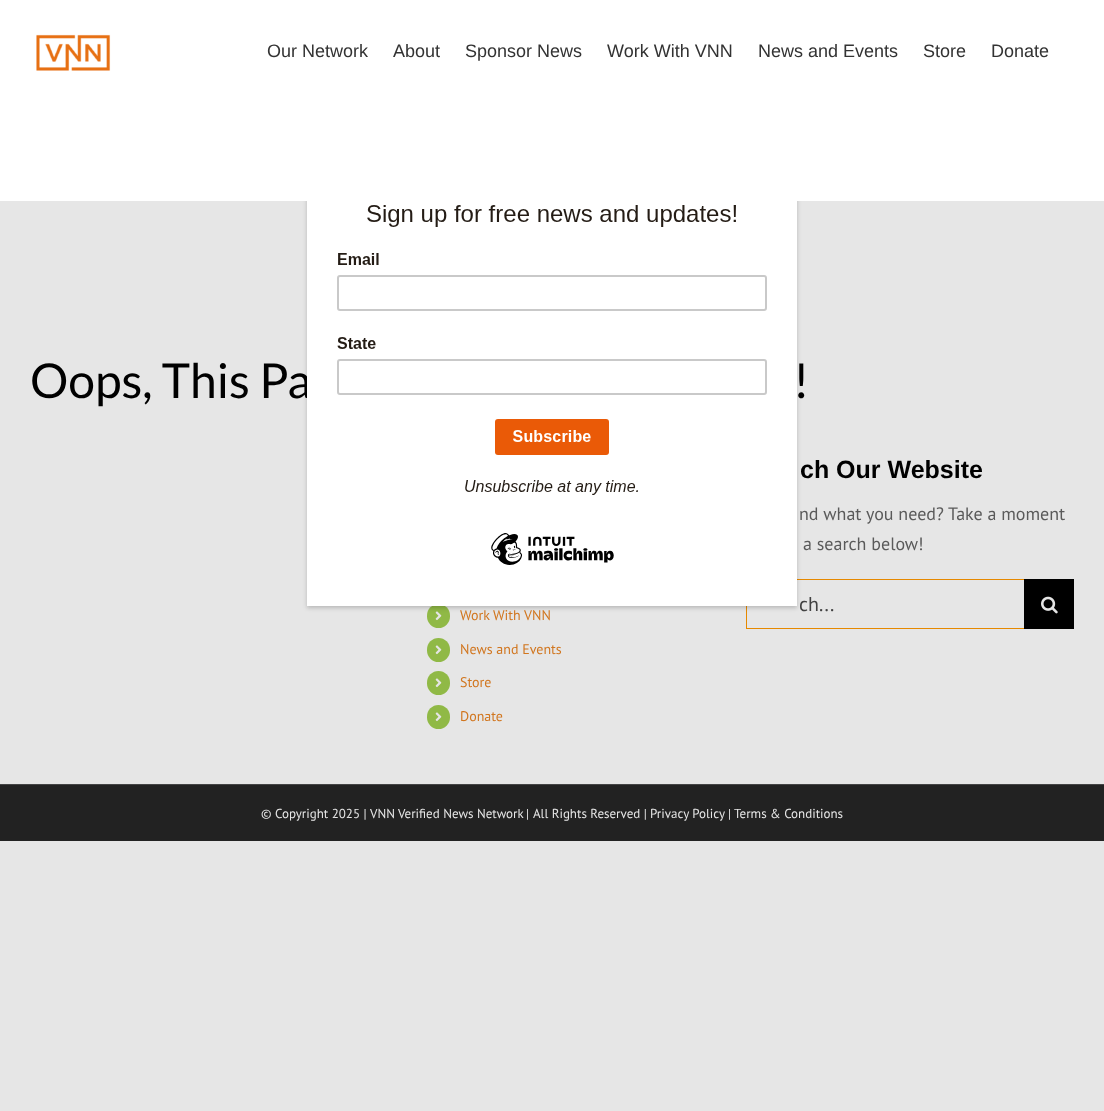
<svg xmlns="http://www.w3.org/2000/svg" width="1104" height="1111">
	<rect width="100%" height="100%" fill="#E6E6E6" />
	<rect x="797" y="579" width="227" height="1" fill="#E68900" />
	<rect x="746" y="628" width="278" height="1" fill="#E68900" />
	<rect x="746" y="606" width="1" height="23" fill="#E68900" />
	<rect x="427" y="604" width="23" height="24" rx="11.5" fill="#90B946" />
	<image x="435" y="611" width="7" height="10" href="assets/img3.png" />
	<rect x="307" y="169" width="490" height="439" fill="#000000" fill-opacity="0.2" filter="blur(2px)" />
	<rect x="0" y="0" width="1104" height="201" fill="#FFFFFF" />
	<image x="36" y="34" width="75" height="37" href="assets/img1.png" />
	<g font-family="Liberation Sans" font-size="18" fill="#333333">
		<text x="267" y="57">Our Network</text>
		<text x="393" y="57">About</text>
		<text x="465" y="57">Sponsor News</text>
		<text x="607" y="57">Work With VNN</text>
		<text x="758" y="57">News and Events</text>
		<text x="923" y="57">Store</text>
		<text x="991" y="57">Donate</text>
	</g>
	<g font-family="Lato" font-size="48" fill="#000000">
		<text x="30" y="398">Oops, This Pa</text>
		<text x="793" y="398">!</text>
	</g>
	<text x="800" y="478" font-family="Liberation Sans" font-size="25" font-weight="700" fill="#000000">ch Our Website</text>
	<g font-family="PT Sans" font-size="18" fill="#5A5A5A">
		<text x="799" y="520">nd what you need? Take a moment</text>
		<text x="803" y="550">a search below!</text>
	</g>
	<text x="799" y="611" font-family="PT Sans" font-size="20" fill="#424242">ch...</text>
	<rect x="1024" y="579" width="50" height="50" fill="#000000" />
	<image x="1041" y="596" width="17" height="18" href="assets/img2.png" />
	<text x="460" y="620" font-family="PT Sans" font-size="14" fill="#D1761F">Work With VNN</text>
	<rect x="427" y="638" width="23" height="24" rx="11.5" fill="#90B946" />
	<image x="435" y="645" width="7" height="10" href="assets/img3.png" />
	<text x="460" y="654" font-family="PT Sans" font-size="14" fill="#D1761F">News and Events</text>
	<rect x="427" y="671" width="23" height="24" rx="11.5" fill="#90B946" />
	<image x="435" y="678" width="7" height="10" href="assets/img3.png" />
	<text x="460" y="687" font-family="PT Sans" font-size="14" fill="#D1761F">Store</text>
	<rect x="427" y="705" width="23" height="24" rx="11.5" fill="#90B946" />
	<image x="435" y="712" width="7" height="10" href="assets/img3.png" />
	<text x="460" y="721" font-family="PT Sans" font-size="14" fill="#D1761F">Donate</text>
	<rect x="0" y="785" width="1104" height="56" fill="#222222" />
	<rect x="0" y="784" width="1104" height="1" fill="#444445" />
	<g font-family="PT Sans" font-size="13" fill="#E6E6E6">
		<text x="261" y="818">© Copyright 2025 |</text>
		<text x="370" y="818">VNN Verified News Network</text>
		<text x="526" y="818">|</text>
		<text x="533" y="818">All Rights Reserved |</text>
		<text x="650" y="818">Privacy Policy</text>
		<text x="728" y="818">|</text>
		<text x="734" y="818">Terms &amp; Conditions</text>
	</g>
	<image x="307" y="201" width="490" height="405" href="assets/img4.png" />
</svg>
